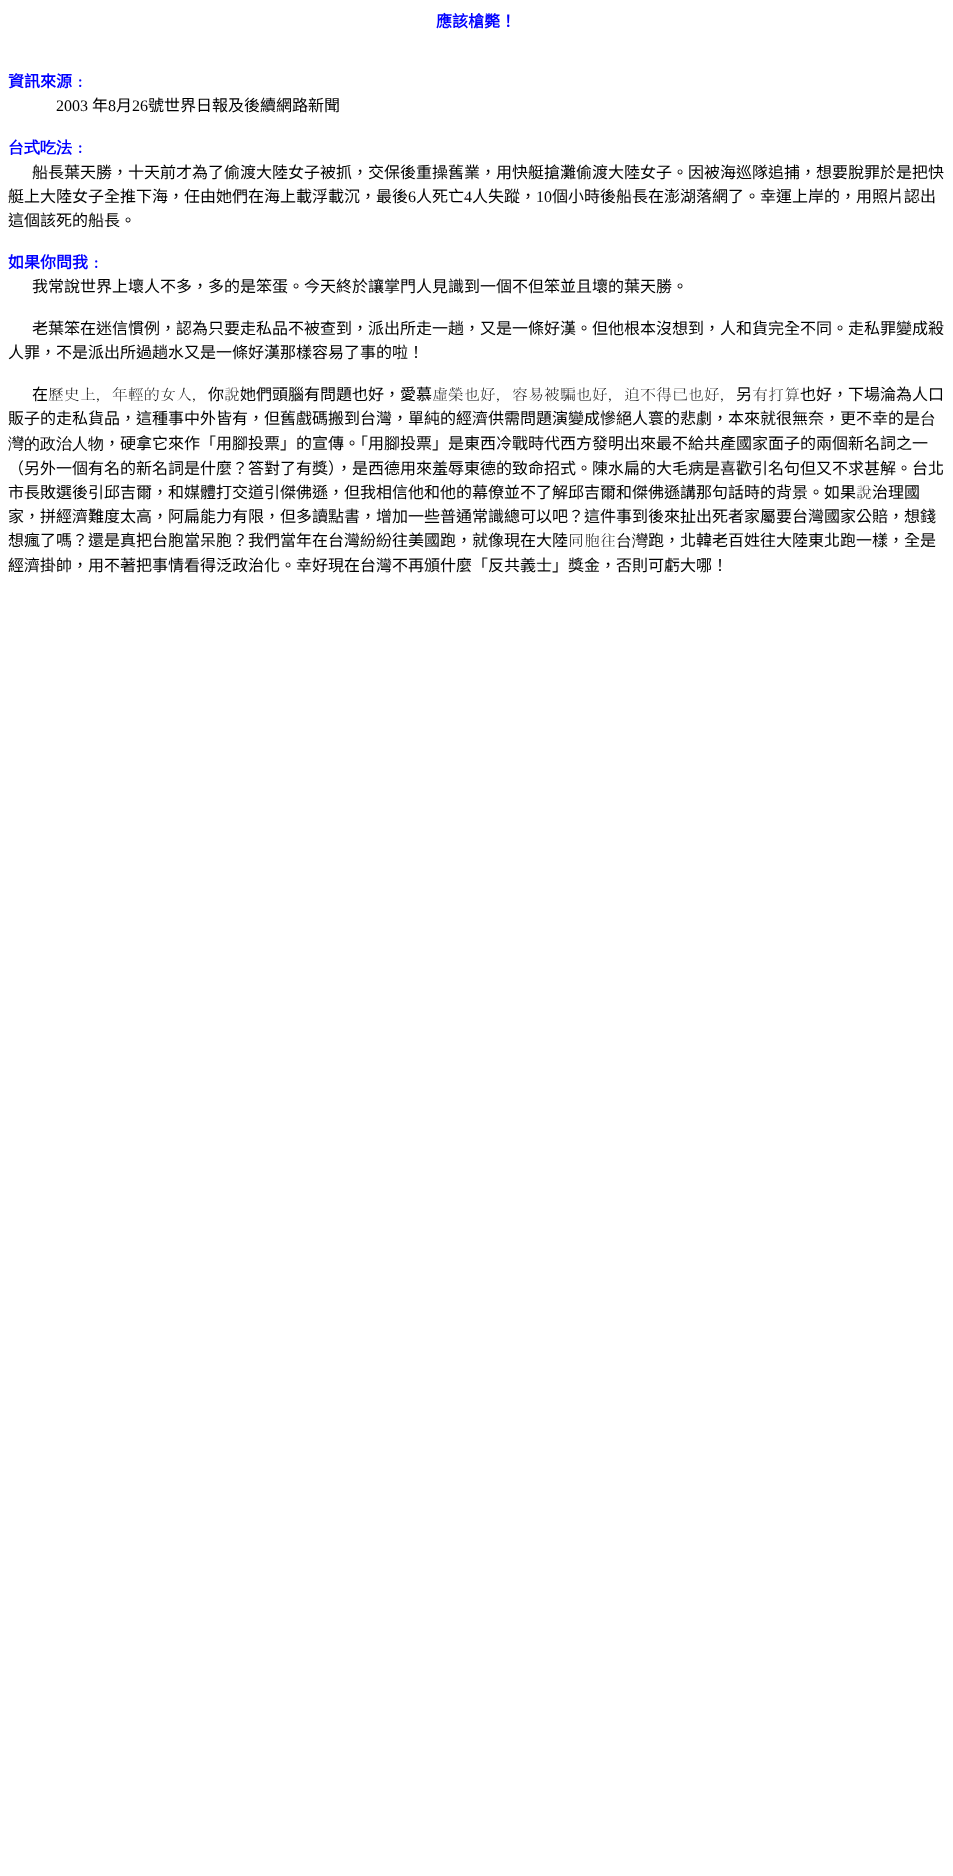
<svg xmlns="http://www.w3.org/2000/svg" width="953" height="1876">
	<rect width="100%" height="100%" fill="#FFFFFF" />
	<g font-family="Noto Sans CJK TC" font-size="16" font-weight="700" fill="#0000FF">
		<text x="436" y="27">應該槍斃！</text>
		<text x="8" y="87">資訊來源</text>
	</g>
	<text x="72" y="87" font-family="Noto Sans CJK SC" font-size="16" font-weight="700" fill="#0000FF">﹕</text>
	<text x="56" y="111" font-family="Liberation Serif" font-size="16" fill="#000000">2003</text>
	<text x="92" y="111" font-family="Noto Sans CJK TC" font-size="16" fill="#000000">年</text>
	<text x="108" y="111" font-family="Liberation Serif" font-size="16" fill="#000000">8</text>
	<text x="116" y="111" font-family="Noto Sans CJK TC" font-size="16" fill="#000000">月</text>
	<text x="132" y="111" font-family="Liberation Serif" font-size="16" fill="#000000">26</text>
	<text x="148" y="111" font-family="Noto Sans CJK TC" font-size="16" fill="#000000">號世界日報及後續網路新聞</text>
	<text x="8" y="153" font-family="WenQuanYi Zen Hei" font-size="16" font-weight="700" fill="#0000FF">台式吃法</text>
	<text x="72" y="153" font-family="Noto Sans CJK SC" font-size="16" font-weight="700" fill="#0000FF">﹕</text>
	<g font-family="Noto Sans CJK TC" font-size="16" fill="#000000">
		<text x="32" y="178">船長葉天勝，十天前才為了偷渡大陸女子被抓，交保後重操舊業，用快艇搶灘偷渡大陸女子。因被海巡隊追捕，想要脫罪於是把快</text>
		<text x="8" y="202">艇上大陸女子全推下海，任由她們在海上載浮載沉，最後</text>
	</g>
	<text x="408" y="202" font-family="Liberation Serif" font-size="16" fill="#000000">6</text>
	<text x="416" y="202" font-family="Noto Sans CJK TC" font-size="16" fill="#000000">人死亡</text>
	<text x="464" y="202" font-family="Liberation Serif" font-size="16" fill="#000000">4</text>
	<text x="472" y="202" font-family="Noto Sans CJK TC" font-size="16" fill="#000000">人失蹤，</text>
	<text x="536" y="202" font-family="Liberation Serif" font-size="16" fill="#000000">10</text>
	<g font-family="Noto Sans CJK TC" font-size="16" fill="#000000">
		<text x="552" y="202">個小時後船長在澎湖落網了。幸運上岸的，用照片認出</text>
		<text x="8" y="226">這個該死的船長。</text>
	</g>
	<text x="8" y="268" font-family="Noto Sans CJK TC" font-size="16" font-weight="700" fill="#0000FF">如果你問我</text>
	<text x="88" y="268" font-family="Noto Sans CJK SC" font-size="16" font-weight="700" fill="#0000FF">﹕</text>
	<g font-family="Noto Sans CJK TC" font-size="16" fill="#000000">
		<text x="32" y="292">我常說世界上壞人不多，多的是笨蛋。今天終於讓掌門人見識到一個不但笨並且壞的葉天勝。</text>
		<text x="32" y="334">老葉笨在迷信慣例，認為只要走私品不被查到，派出所走一趟，又是一條好漢。但他根本沒想到，人和貨完全不同。走私罪變成殺</text>
		<text x="8" y="358">人罪，不是派出所過趟水又是一條好漢那樣容易了事的啦！</text>
		<text x="32" y="400">在</text>
	</g>
	<text x="48" y="400" font-family="Batang" font-size="16" fill="#000000">歷史上，年輕的女人，</text>
	<text x="208" y="400" font-family="Noto Sans CJK TC" font-size="16" fill="#000000">你</text>
	<text x="224" y="400" font-family="Batang" font-size="16" fill="#000000">說</text>
	<text x="240" y="400" font-family="Noto Sans CJK TC" font-size="16" fill="#000000">她們頭腦有問題也好，愛慕</text>
	<text x="432" y="400" font-family="Batang" font-size="16" fill="#000000">虛榮也好，容易被騙也好，迫不得已也好，</text>
	<text x="736" y="400" font-family="Noto Sans CJK TC" font-size="16" fill="#000000">另</text>
	<text x="752" y="400" font-family="Batang" font-size="16" fill="#000000">有打算</text>
	<g font-family="Noto Sans CJK TC" font-size="16" fill="#000000">
		<text x="800" y="400">也好，下場淪為人口</text>
		<text x="8" y="424">販子的走私貨品，這種事中外皆有，但舊戲碼搬到台灣，單純的經濟供需問題演變成慘絕人寰的悲劇，本來就很無奈，更不幸的是</text>
	</g>
	<g font-family="WenQuanYi Zen Hei" font-size="16" font-weight="500" fill="#000000">
		<text x="920" y="424">台</text>
		<text x="8" y="449">灣的政治人物</text>
	</g>
	<g font-family="Noto Sans CJK TC" font-size="16" fill="#000000">
		<text x="104" y="449">，硬拿它來作「用腳投票」的宣傳。「</text>
		<text x="368" y="449">用腳投票」是東西冷戰時代西方發明出來最不給共產國家面子的兩個新名詞之一</text>
		<text x="8" y="474">（另外一個有名的新名詞是什麼？答對了有獎），是西德用來羞辱東德的致命招式。陳水扁的大毛病是喜歡引名句但又不求甚解。台北</text>
		<text x="8" y="498">市長敗選後引邱吉爾，和媒體打交道引傑佛遜，但我相信他和他的幕僚並不了解邱吉爾和傑佛遜講那句話時的背景。如果</text>
	</g>
	<text x="856" y="498" font-family="Batang" font-size="16" fill="#000000">說</text>
	<g font-family="Noto Sans CJK TC" font-size="16" fill="#000000">
		<text x="872" y="498">治理國</text>
		<text x="8" y="522">家，拼經濟難度太高，阿扁能力有限，但多讀點書，增加一些普通常識總可以吧？這件事到後來扯出死者家屬要台灣國家公賠，想錢</text>
		<text x="8" y="546">想瘋了嗎？還是真把台胞當呆胞？我們當年在台灣紛紛往美國跑，就像現在大陸</text>
	</g>
	<text x="568" y="546" font-family="Batang" font-size="16" fill="#000000">同胞往</text>
	<text x="616" y="546" font-family="WenQuanYi Zen Hei" font-size="16" font-weight="500" fill="#000000">台灣</text>
	<g font-family="Noto Sans CJK TC" font-size="16" fill="#000000">
		<text x="648" y="546">跑，北韓老百姓往大陸東北跑一樣，全是</text>
		<text x="8" y="571">經濟掛帥，用不著把事情看得泛政治化。幸好現在台灣不再頒什麼「反共義士」獎金，否則可虧大哪！</text>
	</g>
</svg>
